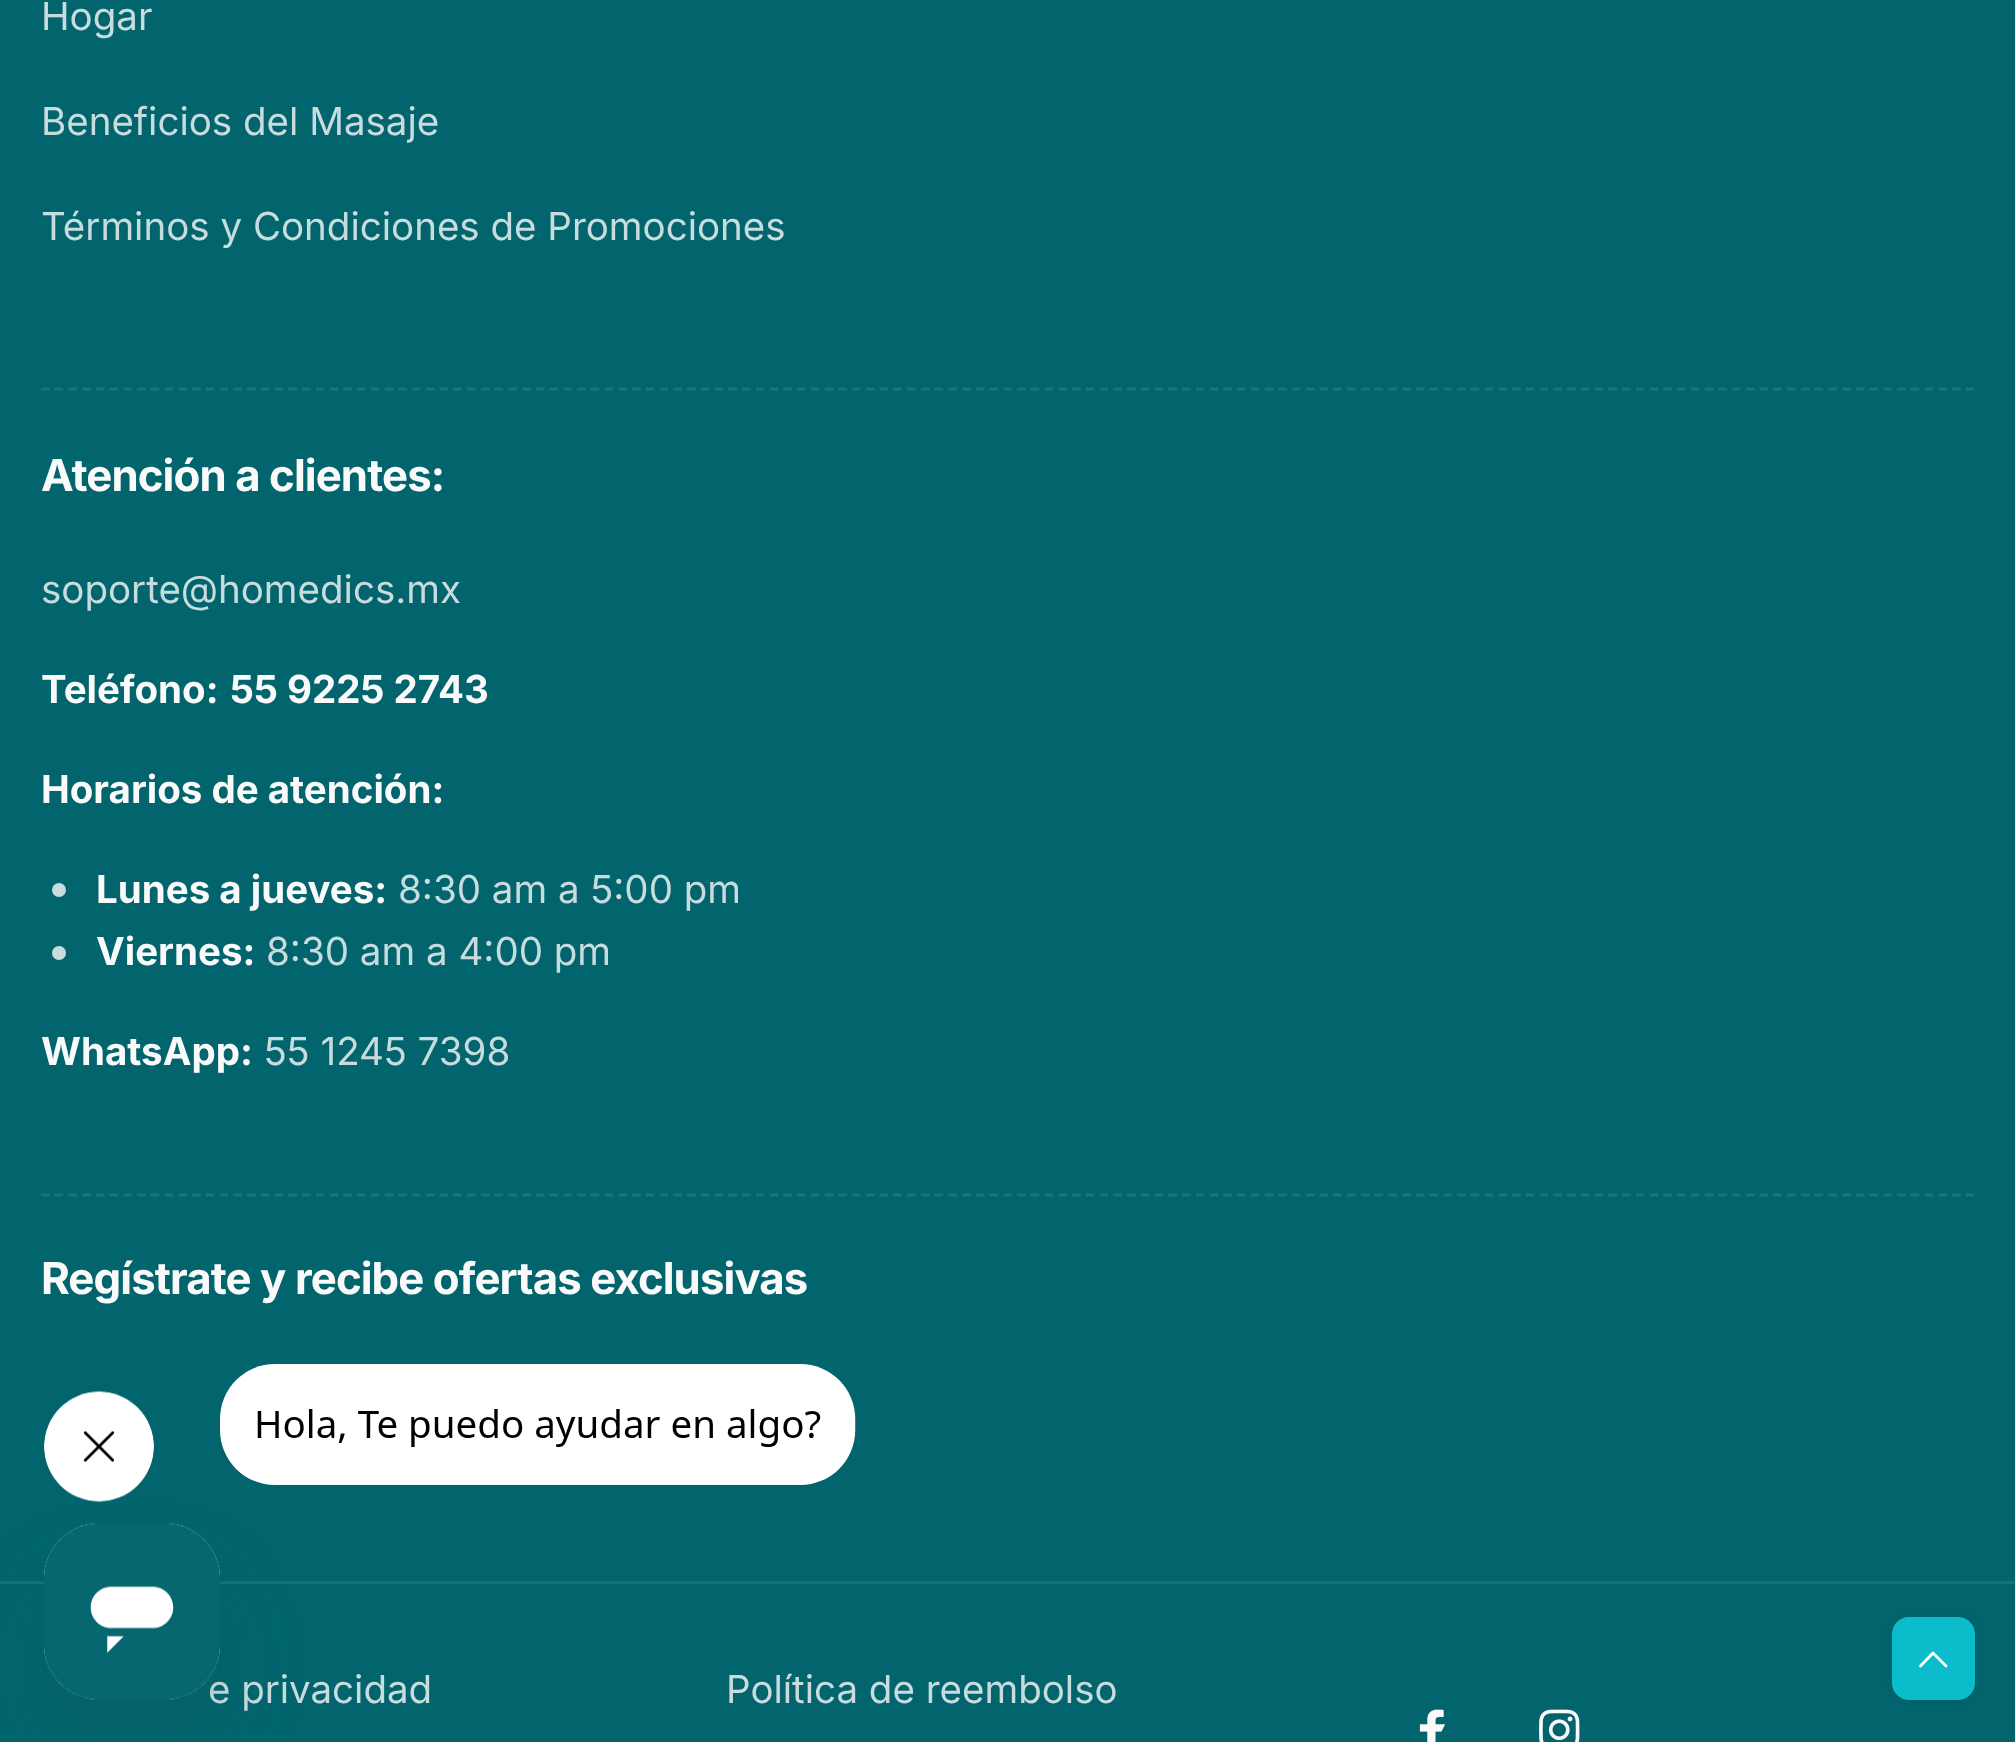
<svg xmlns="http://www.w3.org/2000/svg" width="2015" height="1742">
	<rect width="100%" height="100%" fill="#02656E" />
	<path d="M41 389H1974.5" fill="none" stroke="#1B747C" stroke-width="2.8" stroke-dasharray="8.25 5.5" />
	<g font-family="Inter" font-size="38.5" fill="#C8DCDE">
		<text x="41" y="30">Hogar</text>
		<text x="41" y="135">Beneficios del Masaje</text>
		<text x="41" y="240">Términos y Condiciones de Promociones</text>
	</g>
	<path d="M41 1195H1974.5" fill="none" stroke="#1B747C" stroke-width="2.8" stroke-dasharray="8.25 5.5" />
	<text x="41" y="491" font-family="Inter" font-size="44" font-weight="700" letter-spacing="-0.9" fill="#FAFAFA">Atención a clientes:</text>
	<text x="41" y="603" font-family="Inter" font-size="38.5" fill="#C8DCDE">soporte@homedics.mx</text>
	<g font-family="'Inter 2'" font-size="38.5" font-weight="700" fill="#FAFAFA">
		<text x="41" y="703">Teléfono:</text>
		<text x="230" y="703">55 9225 2743</text>
		<text x="41" y="803">Horarios de atención:</text>
	</g>
	<circle cx="59" cy="890" r="7" fill="#C8DCDE" />
	<text x="96" y="903" font-family="'Inter 2'" font-size="38.5" font-weight="700" fill="#FAFAFA">Lunes a jueves:</text>
	<text x="398" y="903" font-family="Inter" font-size="38.5" fill="#C8DCDE">8:30 am a 5:00 pm</text>
	<circle cx="59" cy="953" r="7" fill="#C8DCDE" />
	<text x="96" y="965" font-family="'Inter 2'" font-size="38.5" font-weight="700" fill="#FAFAFA">Viernes:</text>
	<text x="266" y="965" font-family="Inter" font-size="38.5" fill="#C8DCDE">8:30 am a 4:00 pm</text>
	<text x="41" y="1065" font-family="'Inter 2'" font-size="38.5" font-weight="700" fill="#FAFAFA">WhatsApp:</text>
	<text x="264" y="1065" font-family="Inter" font-size="38.5" fill="#C8DCDE">55 1245 7398</text>
	<text x="41" y="1294" font-family="Inter" font-size="44" font-weight="700" letter-spacing="-0.9" fill="#FAFAFA">Regístrate y recibe ofertas exclusivas</text>
	<rect x="0" y="1581" width="2015" height="3" fill="#167179" />
	<g font-family="Inter" font-size="38.5" fill="#C8DCDE">
		<text x="208" y="1703">e privacidad</text>
		<text x="726" y="1703">Política de reembolso</text>
	</g>
	<image x="1419" y="1709" width="26" height="33" href="assets/img1.png" />
	<image x="1539" y="1709" width="41" height="33" href="assets/img2.png" />
	<image x="44" y="1391" width="110" height="111" href="assets/img3.png" />
	<image x="220" y="1364" width="636" height="121" href="assets/img4.png" />
	<rect x="44" y="1579" width="176" height="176" rx="55" fill="#17494D" fill-opacity="0.15" filter="blur(41px)" />
	<image x="44" y="1523" width="176" height="177" href="assets/img5.png" />
	<rect x="1892" y="1617" width="83" height="83" rx="17" fill="#000000" fill-opacity="0.1" filter="blur(4px)" />
	<rect x="1893.5" y="1618.5" width="80" height="80" rx="15.5" fill="#0BBDCA" stroke="#0BBDCA" stroke-width="3" />
	<path d="M1920.5 1666L1933 1653L1946 1666" fill="none" stroke="#FFFFFF" stroke-width="2.8" stroke-linecap="round" stroke-linejoin="round" />
</svg>
